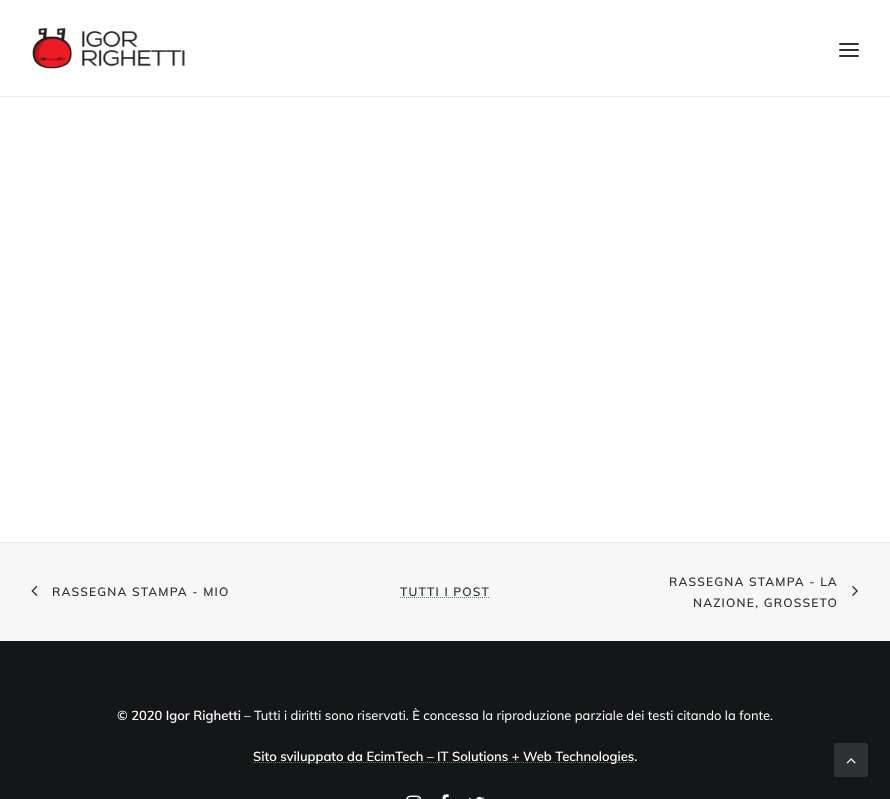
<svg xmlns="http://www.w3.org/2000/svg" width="890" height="799">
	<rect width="100%" height="100%" fill="#FFFFFF" />
	<rect x="0" y="96" width="890" height="1" fill="#EAEAEA" />
	<image x="32" y="28" width="153" height="41" href="assets/img1.png" />
	<rect x="839" y="49" width="20" height="2" rx="1" fill="#303133" />
	<rect x="839" y="43" width="20" height="2" rx="1" fill="#303133" />
	<rect x="839" y="55" width="20" height="2" rx="1" fill="#303133" />
	<rect x="-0.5" y="542.5" width="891" height="99" fill="#F7F7F7" stroke="#EAEAEA" />
	<image x="31" y="585" width="7" height="11" href="assets/img2.png" />
	<g font-family="Muli" font-size="12" font-weight="600" letter-spacing="1.2" fill="#303133">
		<text x="52" y="596">RASSEGNA STAMPA - MIO</text>
		<text x="400" y="596">TUTTI I POST</text>
	</g>
	<path d="M400 597.5H490" fill="none" stroke="#389656" stroke-dasharray="1 1" />
	<g font-family="Muli" font-size="12" font-weight="600" letter-spacing="1.2" fill="#303133">
		<text x="669" y="586">RASSEGNA STAMPA - LA</text>
		<text x="693" y="607">NAZIONE, GROSSETO</text>
	</g>
	<image x="852" y="586" width="6" height="10" href="assets/img3.png" />
	<rect x="0" y="641" width="890" height="158" fill="#141618" />
	<text x="117" y="720" font-family="Muli" font-size="13" font-weight="600" fill="#FFFFFF">© 2020 Igor Righetti</text>
	<text x="244" y="720" font-family="Muli" font-size="13" fill="#FFFFFF">– Tutti i diritti sono riservati. È concessa la riproduzione parziale dei testi citando la fonte.</text>
	<path d="M253 762.5H634" fill="none" stroke="#389656" stroke-dasharray="1 1" />
	<text x="253" y="761" font-family="Muli" font-size="13" font-weight="600" fill="#FFFFFF">Sito sviluppato da EcimTech – IT Solutions + Web Technologies.</text>
	<image x="406" y="795" width="16" height="4" href="assets/img4.png" />
	<image x="442" y="794" width="7" height="5" href="assets/img5.png" />
	<image x="469" y="796" width="16" height="3" href="assets/img6.png" />
	<rect x="834.5" y="743.5" width="33" height="33" rx="1.5" fill="#303133" stroke="#303133" />
	<image x="846" y="758" width="10" height="6" href="assets/img7.png" />
</svg>
